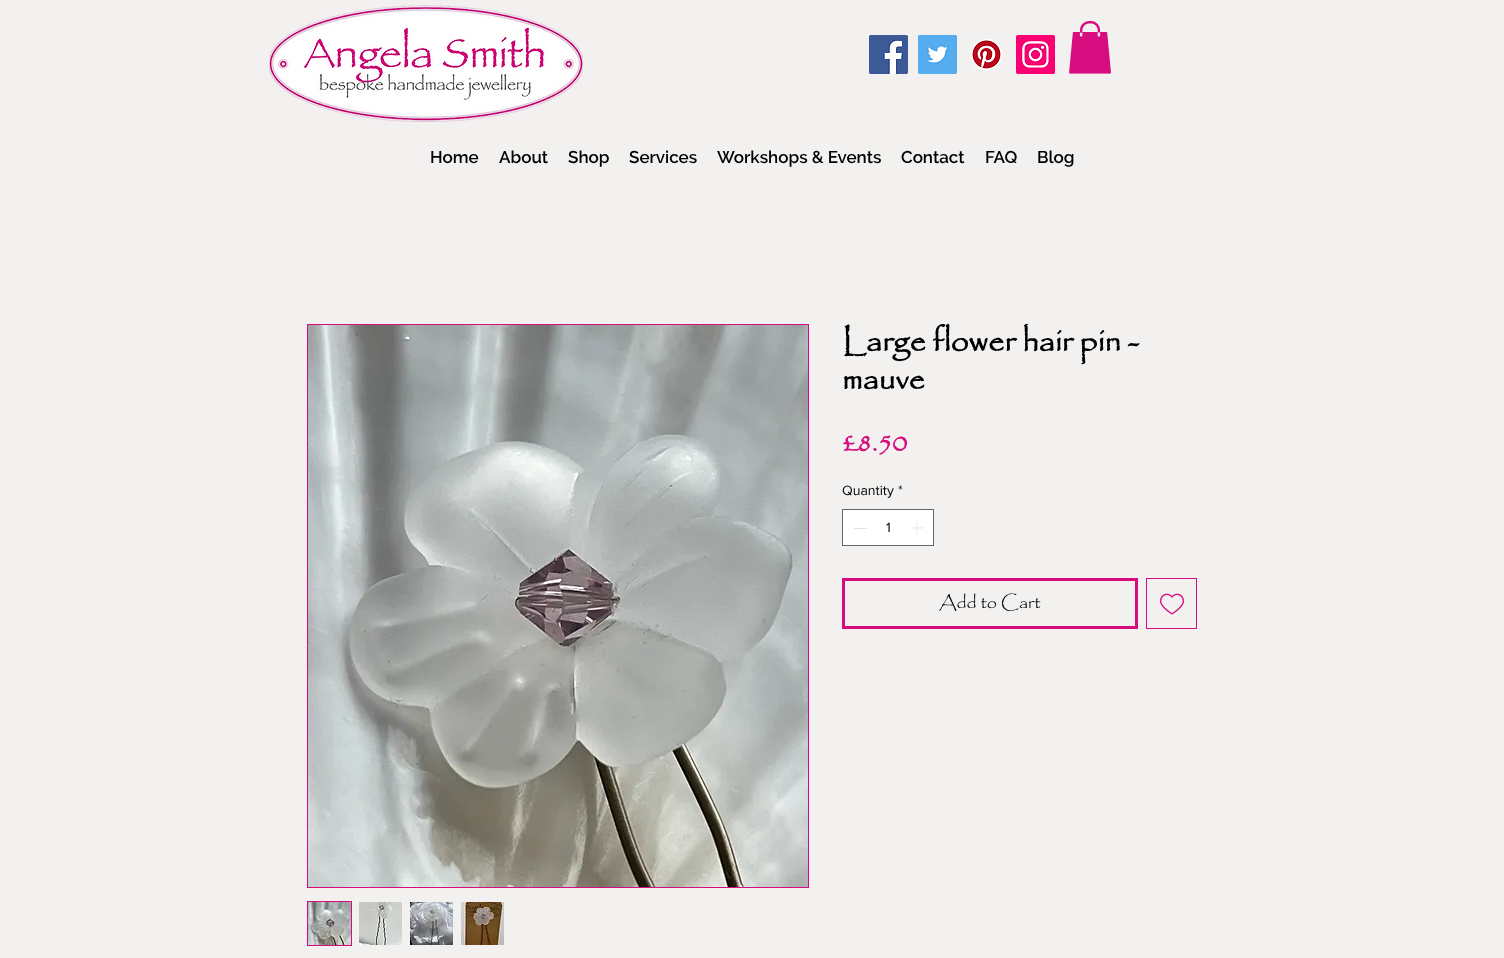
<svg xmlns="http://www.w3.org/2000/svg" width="1504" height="958">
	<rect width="100%" height="100%" fill="#F2F1F0" />
	<image x="269" y="5" width="314" height="117" href="assets/img1.png" />
	<image x="869" y="35" width="39" height="39" href="assets/img2.png" />
	<image x="918" y="35" width="39" height="39" href="assets/img3.png" />
	<image x="971" y="39" width="31" height="31" href="assets/img4.png" />
	<image x="1016" y="35" width="39" height="39" href="assets/img5.png" />
	<image x="1069" y="21" width="42" height="53" href="assets/img6.png" />
	<g font-family="Raleway" font-size="17" font-weight="600" fill="#000000">
		<text x="430" y="163">Home</text>
		<text x="499" y="163">About</text>
		<text x="568" y="163">Shop</text>
		<text x="629" y="163">Services</text>
		<text x="717" y="163">Workshops &amp; Events</text>
		<text x="901" y="163">Contact</text>
		<text x="985" y="163">FAQ</text>
		<text x="1037" y="163">Blog</text>
	</g>
	<rect x="307.5" y="324.5" width="501" height="563" fill="none" stroke="#D70C7F" />
	<image x="308" y="325" width="500" height="562" href="assets/img7.png" />
	<rect x="307.5" y="901.5" width="44" height="44" fill="none" stroke="#D70C7F" />
	<image x="308" y="902" width="43" height="43" href="assets/img8.png" />
	<image x="359" y="902" width="43" height="43" href="assets/img9.png" />
	<image x="410" y="902" width="43" height="43" href="assets/img10.png" />
	<image x="461" y="902" width="43" height="43" href="assets/img11.png" />
	<g font-family="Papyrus" font-size="32" font-weight="700" fill="#000000">
		<text x="842" y="351">Large flower hair pin -</text>
		<text x="842" y="389">mauve</text>
	</g>
	<text x="842" y="451" font-family="Papyrus" font-size="26" font-weight="700" fill="#D70C7F">£8.50</text>
	<g font-family="'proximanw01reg'" font-size="14" fill="#000000">
		<text x="842" y="495">Quantity</text>
		<text x="898" y="495">*</text>
	</g>
	<rect x="842.5" y="509.5" width="91" height="36" fill="#FFFFFF" stroke="#666666" />
	<rect x="854" y="528" width="13" height="1" fill="#E3E3E3" />
	<text x="886" y="532" font-family="'proximanw01reg'" font-size="14" fill="#000000">1</text>
	<image x="910" y="521" width="14" height="14" href="assets/img12.png" />
	<rect x="843.5" y="579.5" width="293" height="48" fill="none" stroke="#D70C7F" stroke-width="3" />
	<text x="939" y="608" font-family="Papyrus" font-size="18" fill="#000000">Add to Cart</text>
	<rect x="1146.5" y="578.5" width="50" height="50" fill="none" stroke="#D70C7F" />
	<image x="1160" y="593" width="24" height="22" href="assets/img13.png" />
</svg>
